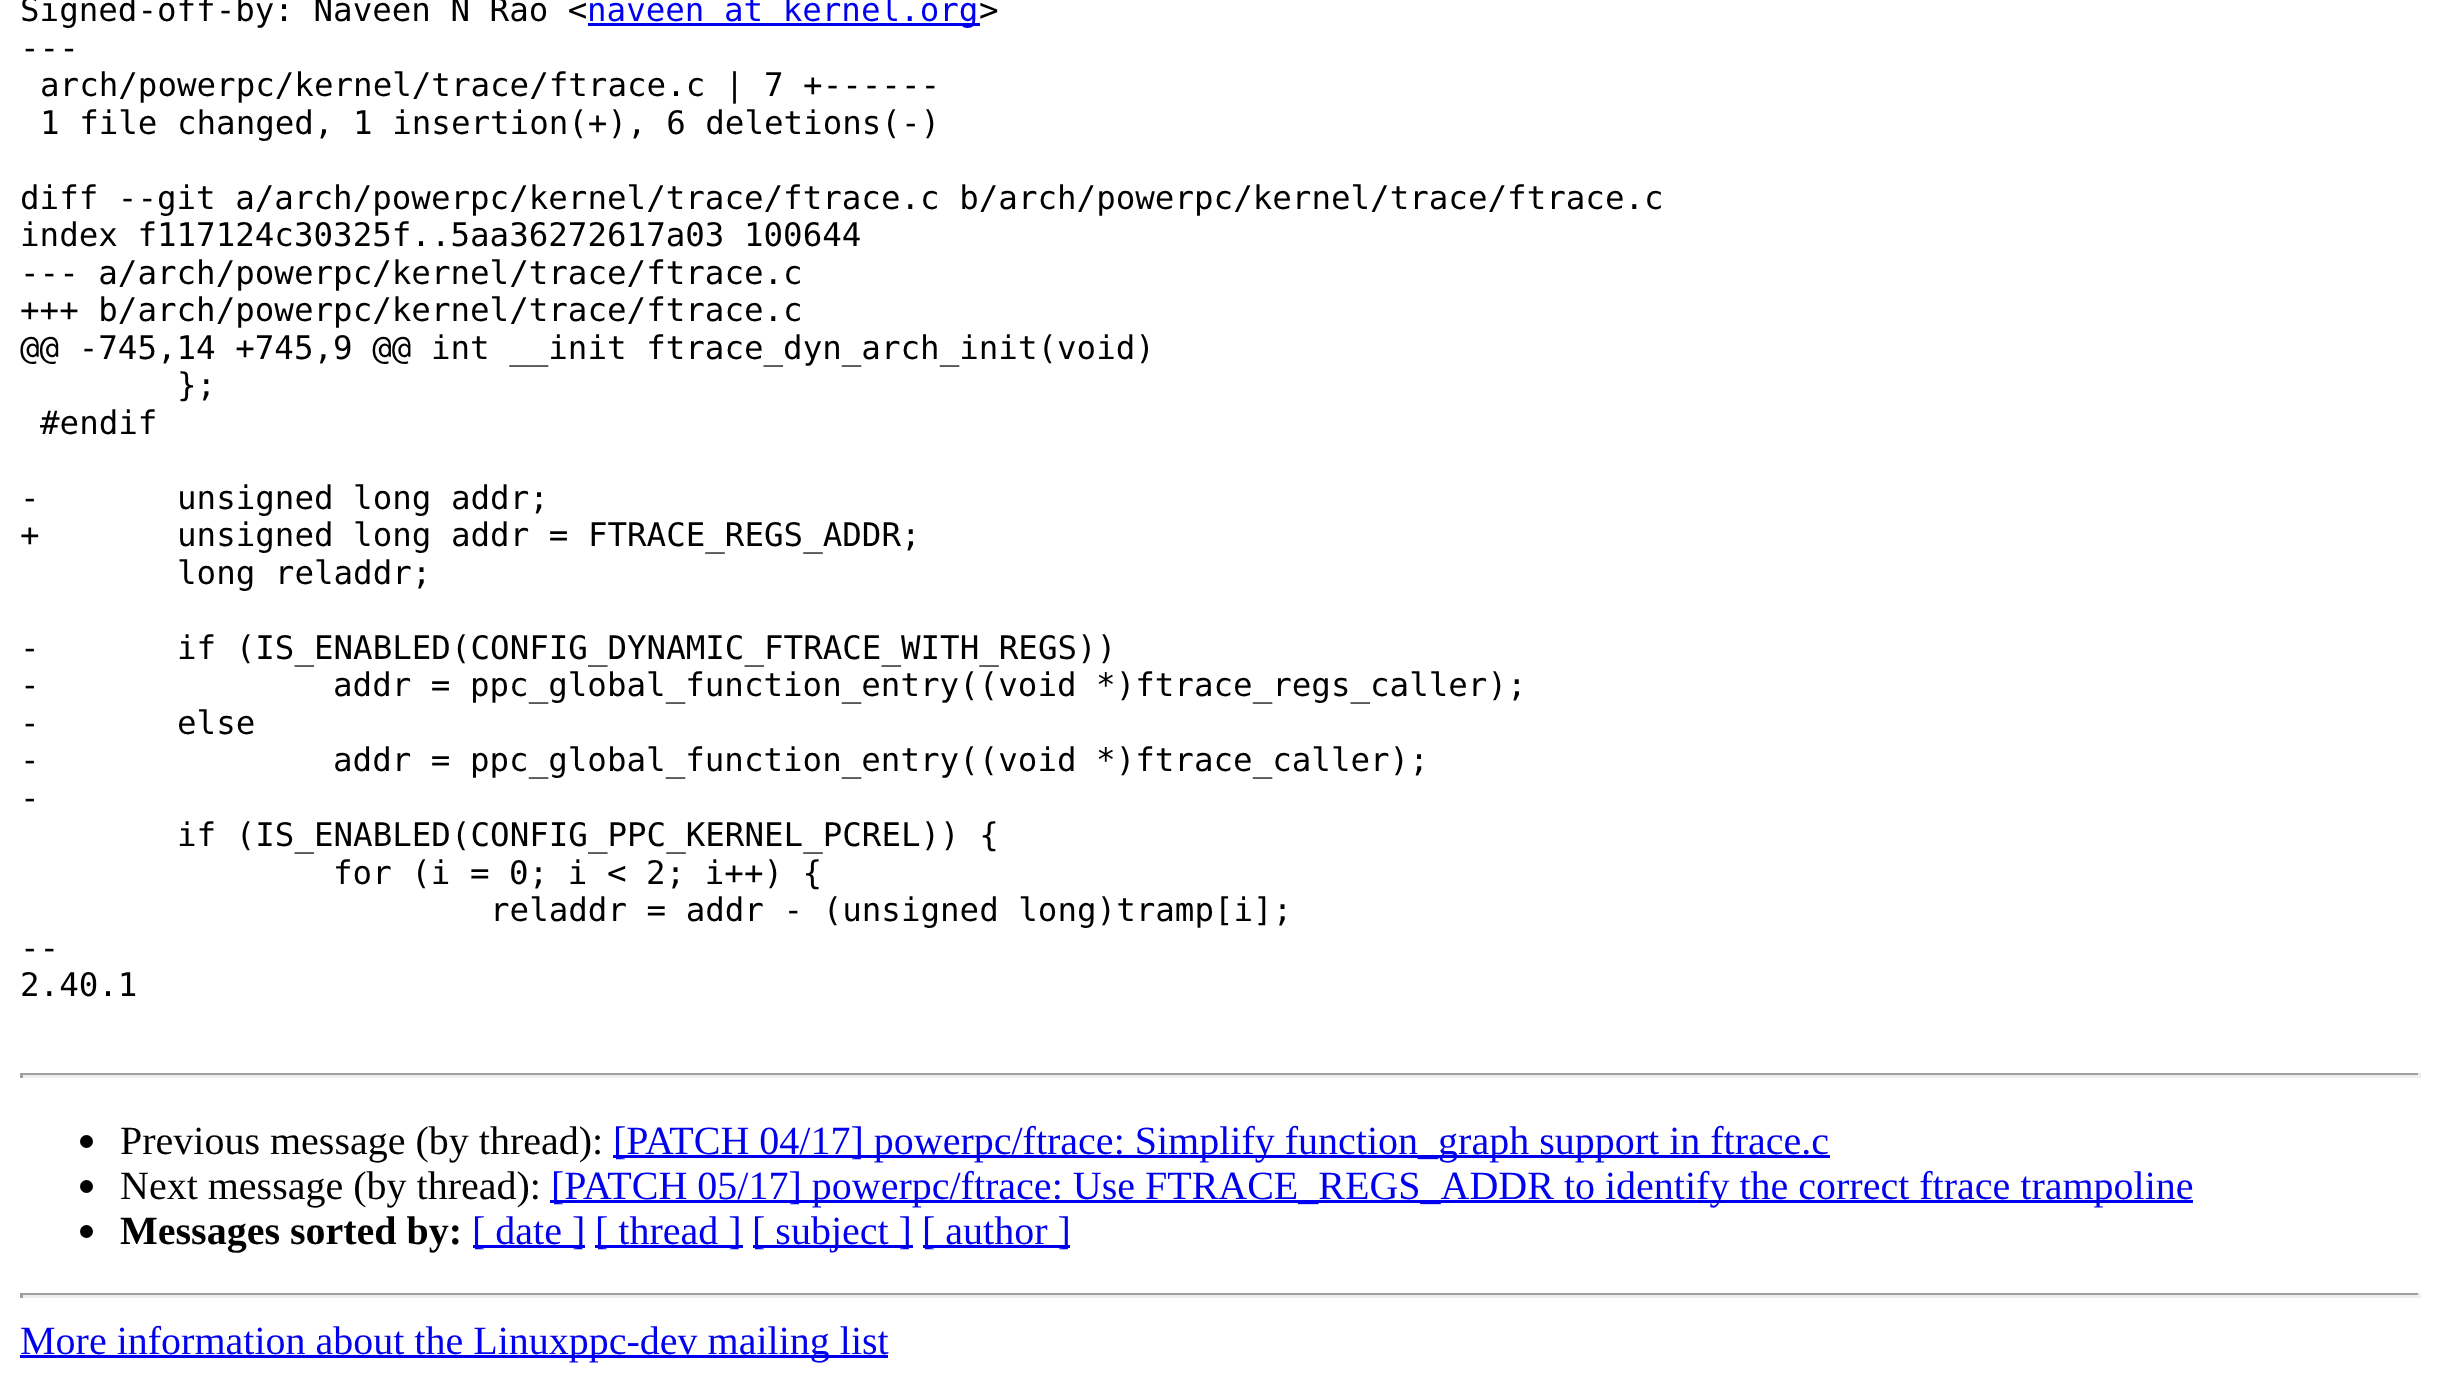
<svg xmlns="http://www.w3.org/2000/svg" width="2438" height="1382">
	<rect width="100%" height="100%" fill="#FFFFFF" />
	<text x="20" y="21" font-family="DejaVu Sans Mono" font-size="32.5" fill="#000000">Signed-off-by: Naveen N Rao &lt;</text>
	<rect x="588" y="23" width="392" height="3" fill="#0000EE" />
	<text x="587" y="21" font-family="DejaVu Sans Mono" font-size="32.5" fill="#0000EE">naveen at kernel.org</text>
	<g font-family="DejaVu Sans Mono" font-size="32.5" fill="#000000">
		<text x="979" y="21">&gt;</text>
		<text x="20" y="59">---</text>
		<text x="40" y="96">arch/powerpc/kernel/trace/ftrace.c | 7 +------</text>
		<text x="40" y="134">1 file changed, 1 insertion(+), 6 deletions(-)</text>
		<text x="20" y="209">diff --git a/arch/powerpc/kernel/trace/ftrace.c b/arch/powerpc/kernel/trace/ftrace.c</text>
		<text x="20" y="246">index f117124c30325f..5aa36272617a03 100644</text>
		<text x="20" y="284">--- a/arch/powerpc/kernel/trace/ftrace.c</text>
		<text x="20" y="321">+++ b/arch/powerpc/kernel/trace/ftrace.c</text>
		<text x="20" y="359">@@ -745,14 +745,9 @@ int __init ftrace_dyn_arch_init(void)</text>
		<text x="177" y="396">};</text>
		<text x="40" y="434">#endif</text>
		<text x="20" y="509">-</text>
		<text x="177" y="509">unsigned long addr;</text>
		<text x="20" y="546">+</text>
		<text x="177" y="546">unsigned long addr = FTRACE_REGS_ADDR;</text>
		<text x="177" y="584">long reladdr;</text>
		<text x="20" y="659">-</text>
		<text x="177" y="659">if (IS_ENABLED(CONFIG_DYNAMIC_FTRACE_WITH_REGS))</text>
		<text x="20" y="696">-</text>
		<text x="333" y="696">addr = ppc_global_function_entry((void *)ftrace_regs_caller);</text>
		<text x="20" y="734">-</text>
		<text x="177" y="734">else</text>
		<text x="20" y="771">-</text>
		<text x="333" y="771">addr = ppc_global_function_entry((void *)ftrace_caller);</text>
		<text x="20" y="809">-</text>
		<text x="177" y="846">if (IS_ENABLED(CONFIG_PPC_KERNEL_PCREL)) {</text>
		<text x="333" y="884">for (i = 0; i &lt; 2; i++) {</text>
		<text x="490" y="921">reladdr = addr - (unsigned long)tramp[i];</text>
		<text x="20" y="959">--</text>
		<text x="20" y="996">2.40.1</text>
	</g>
	<rect x="20" y="1073" width="2400" height="2" fill="#9F9F9F" />
	<rect x="2418" y="1073" width="3" height="5" fill="#EEEEEE" />
	<rect x="20" y="1075" width="2400" height="3" fill="#EEEEEE" />
	<rect x="20" y="1073" width="3" height="5" fill="#9F9F9F" />
	<circle cx="86.5" cy="1141.5" r="6.5" fill="#000000" />
	<text x="120" y="1154" font-family="Liberation Serif" font-size="40" fill="#000000">Previous message (by thread):</text>
	<rect x="613" y="1155" width="1217" height="3" fill="#0000EE" />
	<text x="613" y="1154" font-family="Liberation Serif" font-size="40" fill="#0000EE">[PATCH 04/17] powerpc/ftrace: Simplify function_graph support in ftrace.c</text>
	<circle cx="86.5" cy="1186.5" r="6.5" fill="#000000" />
	<text x="120" y="1199" font-family="Liberation Serif" font-size="40" fill="#000000">Next message (by thread):</text>
	<rect x="550" y="1200" width="1643" height="3" fill="#0000EE" />
	<text x="551" y="1199" font-family="Liberation Serif" font-size="40" fill="#0000EE">[PATCH 05/17] powerpc/ftrace: Use FTRACE_REGS_ADDR to identify the correct ftrace trampoline</text>
	<circle cx="86.5" cy="1231.5" r="6.5" fill="#000000" />
	<text x="120" y="1244" font-family="Liberation Serif" font-size="40" font-weight="700" fill="#000000">Messages sorted by:</text>
	<rect x="473" y="1245" width="112" height="3" fill="#0000EE" />
	<text x="472" y="1244" font-family="Liberation Serif" font-size="40" fill="#0000EE">[ date ]</text>
	<rect x="595" y="1245" width="148" height="3" fill="#0000EE" />
	<text x="595" y="1244" font-family="Liberation Serif" font-size="40" fill="#0000EE">[ thread ]</text>
	<rect x="753" y="1245" width="160" height="3" fill="#0000EE" />
	<text x="752" y="1244" font-family="Liberation Serif" font-size="40" fill="#0000EE">[ subject ]</text>
	<rect x="923" y="1245" width="147" height="3" fill="#0000EE" />
	<text x="922" y="1244" font-family="Liberation Serif" font-size="40" fill="#0000EE">[ author ]</text>
	<rect x="20" y="1293" width="2400" height="2" fill="#9F9F9F" />
	<rect x="2418" y="1293" width="3" height="5" fill="#EEEEEE" />
	<rect x="20" y="1295" width="2400" height="3" fill="#EEEEEE" />
	<rect x="20" y="1293" width="3" height="5" fill="#9F9F9F" />
	<rect x="20" y="1355" width="868" height="3" fill="#0000EE" />
	<text x="20" y="1354" font-family="Liberation Serif" font-size="40" fill="#0000EE">More information about the Linuxppc-dev mailing list</text>
</svg>
